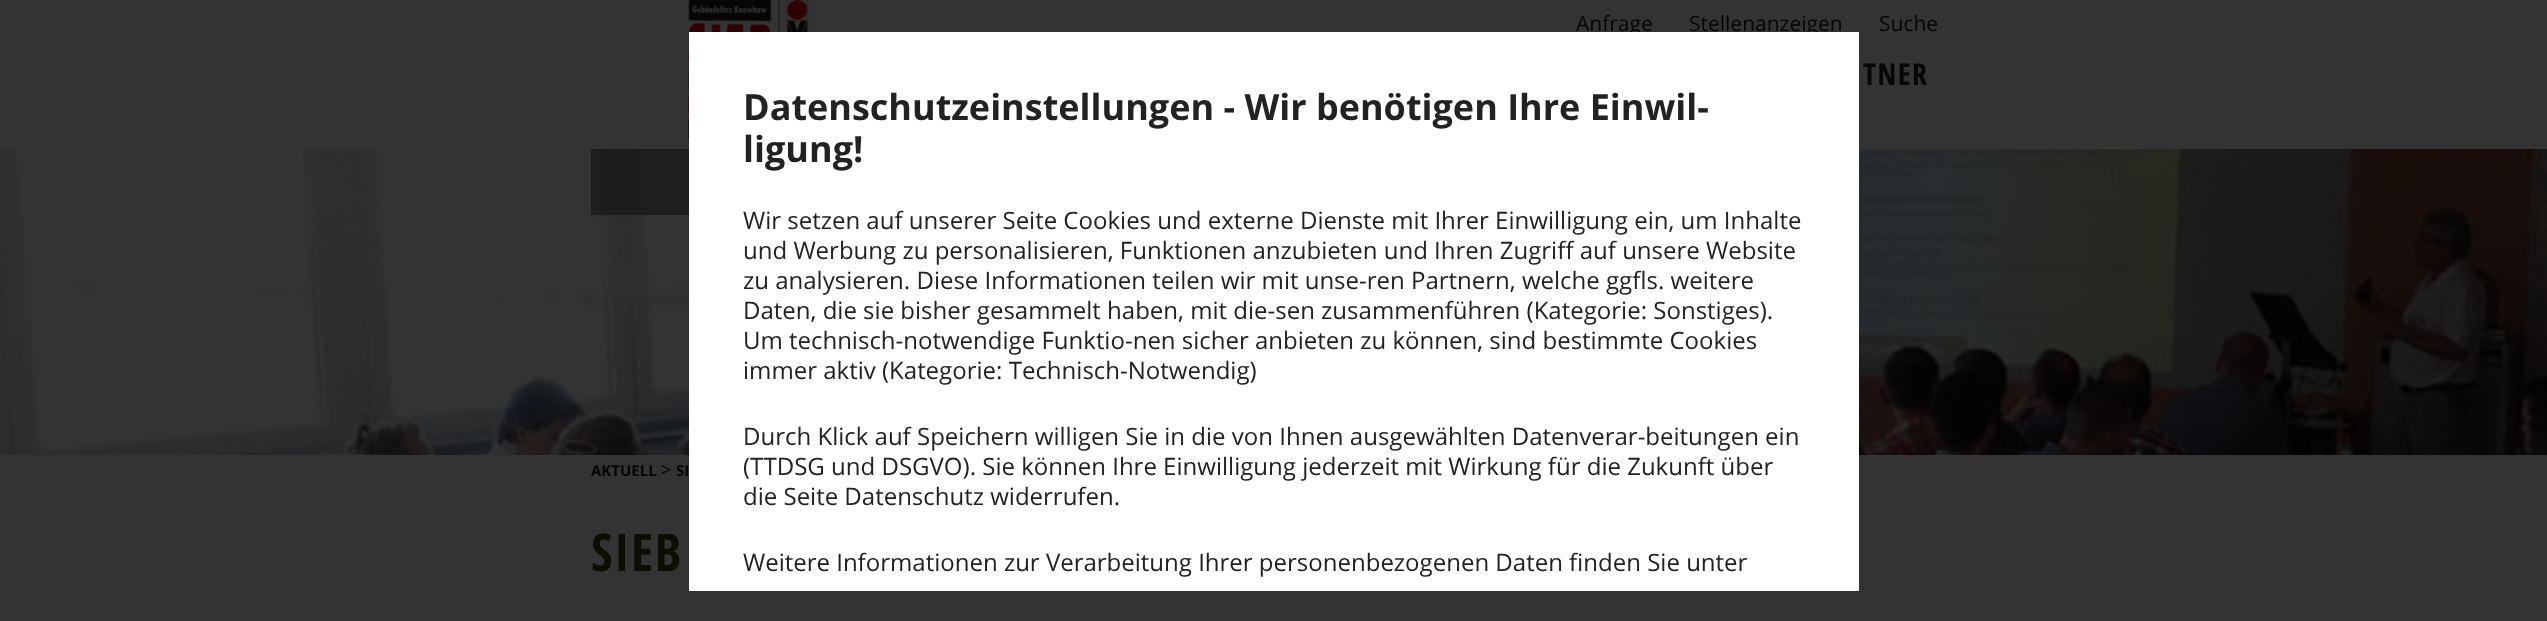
<svg xmlns="http://www.w3.org/2000/svg" width="2547" height="621">
	<rect width="100%" height="100%" fill="#333333" />
	<image x="688" y="0" width="121" height="140" href="assets/img1.png" />
	<g font-family="Open Sans" font-size="21" fill="#060606">
		<text x="1576" y="31">Anfrage</text>
		<text x="1689" y="31">Stellenanzeigen</text>
		<text x="1879" y="31">Suche</text>
	</g>
	<text x="1863" y="85" font-family="Open Sans Condensed" font-size="30" font-weight="700" letter-spacing="1.5" fill="#060606">TNER</text>
	<image x="0" y="149" width="2547" height="306" href="assets/img2.png" />
	<rect x="591" y="149" width="98" height="66" fill="#101010" fill-opacity="0.6" />
	<rect x="689" y="32" width="1170" height="559" fill="#FFFFFF" />
	<g font-family="Open Sans" font-size="36" font-weight="700" fill="#222222">
		<text x="743" y="120">Datenschutzeinstellungen - Wir benötigen Ihre Einwil-</text>
		<text x="743" y="162">ligung!</text>
	</g>
	<g font-family="Open Sans" font-size="24" fill="#222222">
		<text x="743" y="229">Wir setzen auf unserer Seite Cookies und externe Dienste mit Ihrer Einwilligung ein, um Inhalte</text>
		<text x="743" y="259">und Werbung zu personalisieren, Funktionen anzubieten und Ihren Zugriff auf unsere Website</text>
		<text x="743" y="289">zu analysieren. Diese Informationen teilen wir mit unse-ren Partnern, welche ggfls. weitere</text>
		<text x="743" y="319">Daten, die sie bisher gesammelt haben, mit die-sen zusammenführen (Kategorie: Sonstiges).</text>
		<text x="743" y="349">Um technisch-notwendige Funktio-nen sicher anbieten zu können, sind bestimmte Cookies</text>
		<text x="743" y="379">immer aktiv (Kategorie: Technisch-Notwendig)</text>
		<text x="743" y="445">Durch Klick auf Speichern willigen Sie in die von Ihnen ausgewählten Datenverar-beitungen ein</text>
		<text x="743" y="475">(TTDSG und DSGVO). Sie können Ihre Einwilligung jederzeit mit Wirkung für die Zukunft über</text>
		<text x="743" y="505">die Seite Datenschutz widerrufen.</text>
		<text x="743" y="571">Weitere Informationen zur Verarbeitung Ihrer personenbezogenen Daten finden Sie unter</text>
	</g>
	<text x="591" y="476" font-family="Open Sans" font-size="15" font-weight="700" fill="#060606">AKTUELL</text>
	<text x="661" y="476" font-family="Open Sans" font-size="18" fill="#060606">&gt;</text>
	<text x="676" y="476" font-family="Open Sans" font-size="15" font-weight="700" fill="#060606">SI</text>
	<text x="591" y="571" font-family="Open Sans Condensed" font-size="52" font-weight="700" letter-spacing="1.5" fill="#0D0D02">SIEB</text>
</svg>
